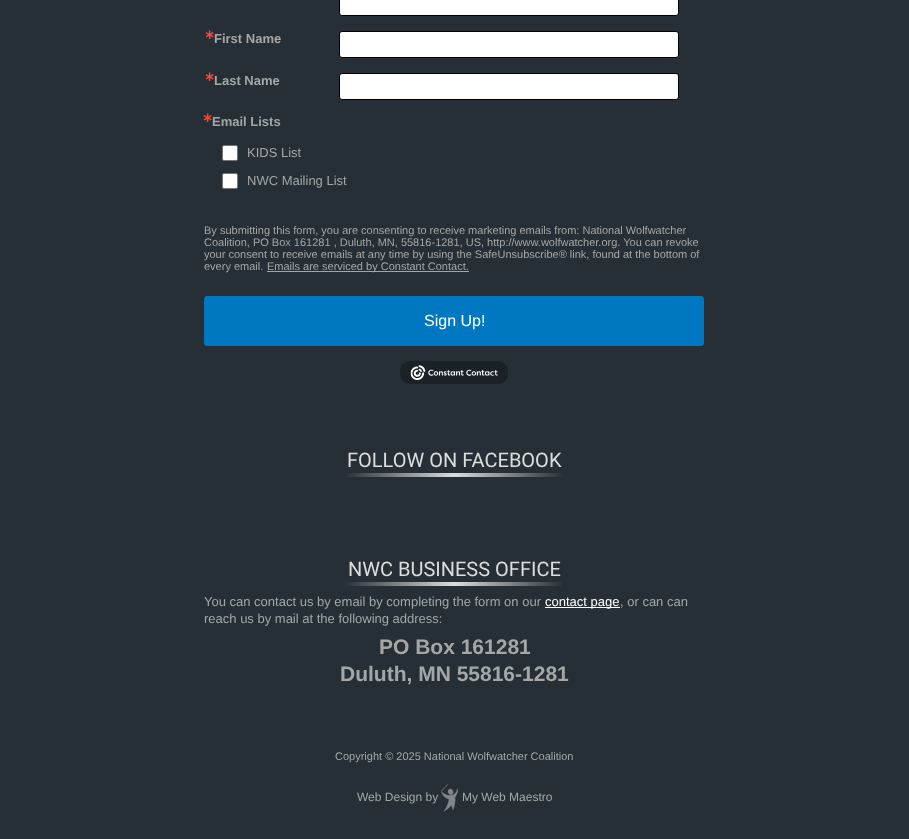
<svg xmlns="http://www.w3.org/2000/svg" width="909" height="839">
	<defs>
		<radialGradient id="g1" gradientUnits="userSpaceOnUse" cx="454" cy="475" r="110"><stop offset="0" stop-color="#DCDDDD" /><stop offset="1" stop-color="#272F36" /></radialGradient>
		<radialGradient id="g2" gradientUnits="userSpaceOnUse" cx="454" cy="584" r="110"><stop offset="0" stop-color="#DCDDDD" /><stop offset="1" stop-color="#272F36" /></radialGradient>
	</defs>
	<rect width="100%" height="100%" fill="#272F36" />
	<rect x="339.5" y="-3.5" width="339" height="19" rx="2.5" fill="#FFFFFF" stroke="#000000" />
	<text x="204" y="39" font-family="DejaVu Sans" font-size="13" font-weight="700" fill="#F5463B">∗</text>
	<text x="214" y="43" font-family="Liberation Sans" font-size="13" font-weight="700" fill="#A5A6A5">First Name</text>
	<rect x="339.5" y="31.5" width="339" height="26" rx="2.5" fill="#FFFFFF" stroke="#000000" />
	<text x="204" y="81" font-family="DejaVu Sans" font-size="13" font-weight="700" fill="#F5463B">∗</text>
	<text x="214" y="85" font-family="Liberation Sans" font-size="13" font-weight="700" fill="#A5A6A5">Last Name</text>
	<rect x="339.5" y="73.5" width="339" height="26" rx="2.5" fill="#FFFFFF" stroke="#000000" />
	<text x="202" y="122" font-family="DejaVu Sans" font-size="13" font-weight="700" fill="#F5463B">∗</text>
	<text x="212" y="126" font-family="Liberation Sans" font-size="13" font-weight="700" fill="#A5A6A5">Email Lists</text>
	<rect x="222.5" y="145.5" width="15" height="15" rx="1.5" fill="#FFFFFF" stroke="#767676" />
	<text x="247" y="157" font-family="Liberation Sans" font-size="13" fill="#A5A6A5">KIDS List</text>
	<rect x="222.5" y="173.5" width="15" height="15" rx="1.5" fill="#FFFFFF" stroke="#767676" />
	<text x="247" y="185" font-family="Liberation Sans" font-size="13" fill="#A5A6A5">NWC Mailing List</text>
	<g font-family="Liberation Sans" font-size="11" fill="#A5A6A5">
		<text x="204" y="234">By submitting this form, you are consenting to receive marketing emails from: National Wolfwatcher</text>
		<text x="204" y="246">Coalition, PO Box 161281 , Duluth, MN, 55816-1281, US, http://www.wolfwatcher.org. You can revoke</text>
		<text x="204" y="258">your consent to receive emails at any time by using the SafeUnsubscribe® link, found at the bottom of</text>
		<text x="204" y="270">every email.</text>
	</g>
	<rect x="267" y="271" width="202" height="1" fill="#A5A6A5" />
	<text x="267" y="270" font-family="Liberation Sans" font-size="11" fill="#A5A6A5">Emails are serviced by Constant Contact.</text>
	<rect x="204.5" y="296.5" width="499" height="49" rx="2.5" fill="#0078C1" stroke="#0078C1" />
	<text x="424" y="326" font-family="Liberation Sans" font-size="16" fill="#FFFFFF">Sign Up!</text>
	<rect x="400" y="361" width="108" height="23" rx="10" fill="#1B2126" />
	<image x="410" y="365" width="88" height="15" href="assets/img1.png" />
	<text x="347" y="467" font-family="Roboto" font-size="20" fill="#DCDDDD">FOLLOW ON FACEBOOK</text>
	<rect x="346" y="473" width="216" height="4" fill="url(#g1)" />
	<text x="348" y="576" font-family="Roboto" font-size="20" fill="#DCDDDD">NWC BUSINESS OFFICE</text>
	<rect x="346" y="582" width="216" height="4" fill="url(#g2)" />
	<text x="204" y="606" font-family="Liberation Sans" font-size="13" fill="#A5A6A5">You can contact us by email by completing the form on our</text>
	<rect x="545" y="607" width="75" height="1" fill="#FFFFFF" />
	<text x="545" y="606" font-family="Liberation Sans" font-size="13" fill="#FFFFFF">contact page</text>
	<g font-family="Liberation Sans" font-size="13" fill="#A5A6A5">
		<text x="620" y="606">, or can can</text>
		<text x="204" y="623">reach us by mail at the following address:</text>
	</g>
	<g font-family="Liberation Sans" font-size="21" font-weight="700" fill="#A5A6A5">
		<text x="379" y="654">PO Box 161281</text>
		<text x="340" y="681">Duluth, MN 55816-1281</text>
	</g>
	<text x="335" y="760" font-family="Liberation Sans" font-size="11" fill="#A5A6A5">Copyright © 2025 National Wolfwatcher Coalition</text>
	<text x="357" y="801" font-family="Liberation Sans" font-size="12" fill="#A5A6A5">Web Design by</text>
	<image x="441" y="784" width="17" height="28" href="assets/img2.png" />
	<text x="462" y="801" font-family="Liberation Sans" font-size="12" fill="#A5A6A5">My Web Maestro</text>
</svg>
